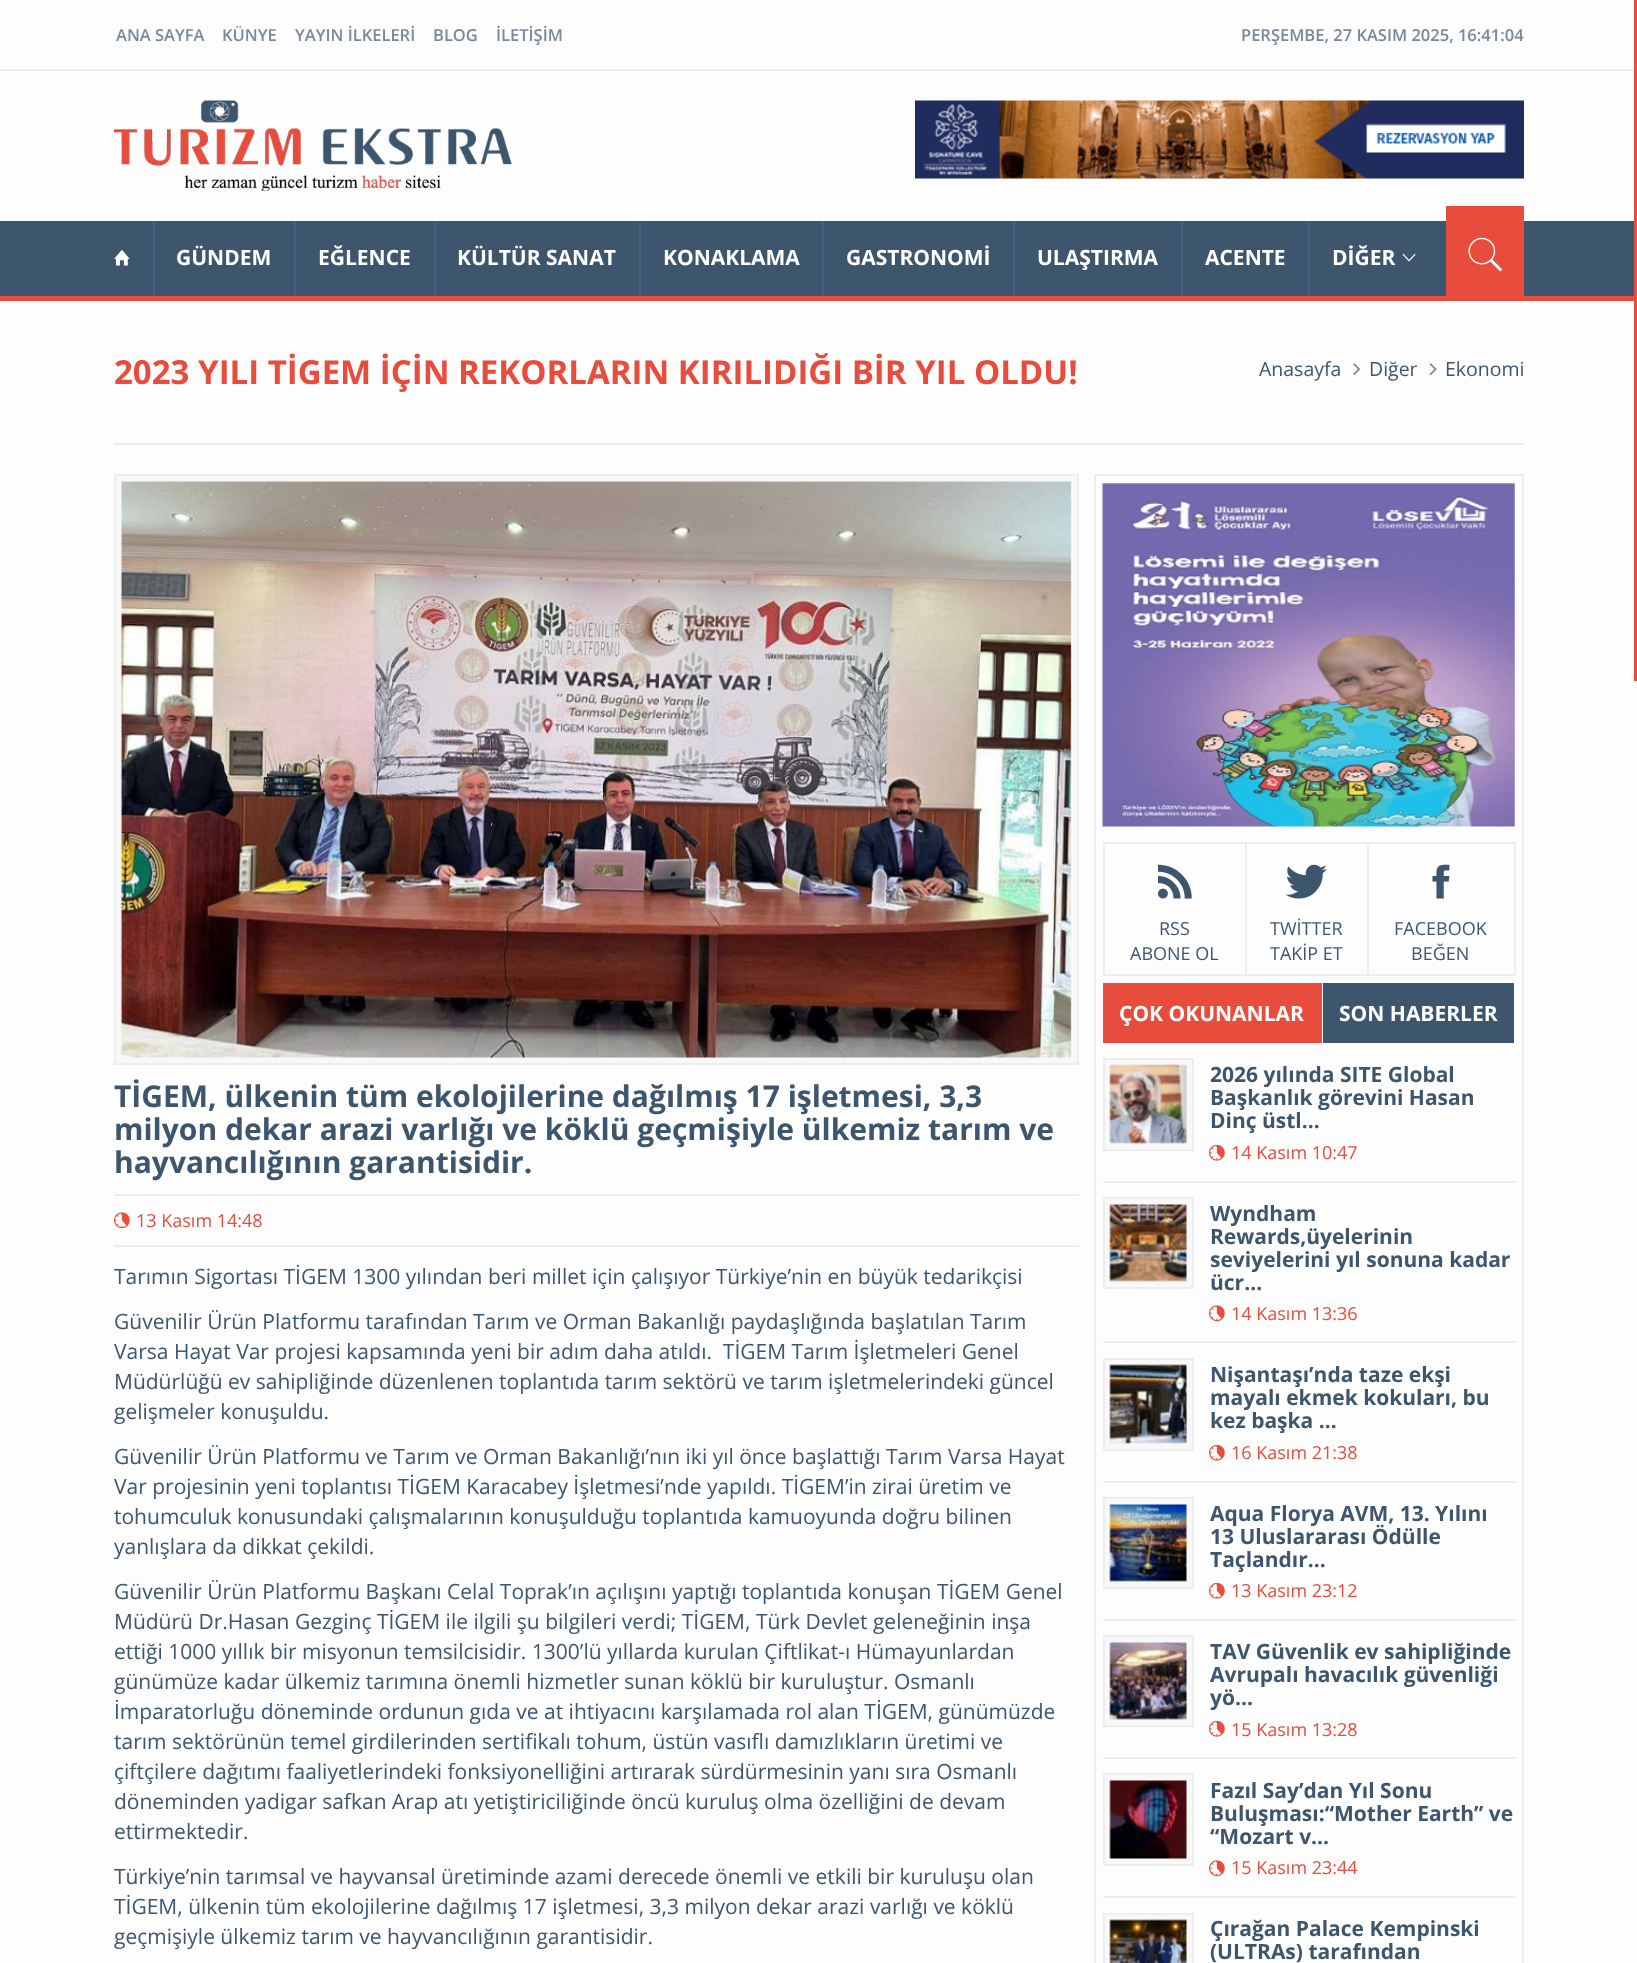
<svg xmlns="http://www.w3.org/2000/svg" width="1637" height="1963">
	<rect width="100%" height="100%" fill="#FDFDFD" />
	<rect x="0" y="69" width="1637" height="2" fill="#ECF0F1" />
	<g font-family="Open Sans" font-size="16.5" font-weight="600" fill="#78899B">
		<text x="116" y="41">ANA SAYFA</text>
		<text x="222" y="41">KÜNYE</text>
		<text x="295" y="41">YAYIN İLKELERİ</text>
		<text x="433" y="41">BLOG</text>
		<text x="496" y="41">İLETİŞİM</text>
		<text x="1241" y="41">PERŞEMBE, 27 KASIM 2025, 16:41:04</text>
	</g>
	<image x="114" y="100" width="398" height="91" href="assets/img1.png" />
	<image x="915" y="100" width="609" height="79" href="assets/img2.png" />
	<rect x="0" y="221" width="1634" height="75" fill="#3D566E" />
	<rect x="0" y="296" width="1637" height="5" fill="#E74C3C" />
	<rect x="153" y="221" width="2" height="75" fill="#44617D" />
	<image x="114" y="249" width="16" height="17" href="assets/img3.png" />
	<rect x="294" y="221" width="2" height="75" fill="#44617D" />
	<text x="176" y="265" font-family="Open Sans" font-size="21" font-weight="700" fill="#FFFFFF">GÜNDEM</text>
	<rect x="434" y="221" width="2" height="75" fill="#44617D" />
	<text x="318" y="265" font-family="Open Sans" font-size="21" font-weight="700" fill="#FFFFFF">EĞLENCE</text>
	<rect x="639" y="221" width="2" height="75" fill="#44617D" />
	<text x="457" y="265" font-family="Open Sans" font-size="21" font-weight="700" fill="#FFFFFF">KÜLTÜR SANAT</text>
	<rect x="822" y="221" width="2" height="75" fill="#44617D" />
	<text x="663" y="265" font-family="Open Sans" font-size="21" font-weight="700" fill="#FFFFFF">KONAKLAMA</text>
	<rect x="1013" y="221" width="2" height="75" fill="#44617D" />
	<text x="846" y="265" font-family="Open Sans" font-size="21" font-weight="700" fill="#FFFFFF">GASTRONOMİ</text>
	<rect x="1181" y="221" width="2" height="75" fill="#44617D" />
	<text x="1037" y="265" font-family="Open Sans" font-size="21" font-weight="700" fill="#FFFFFF">ULAŞTIRMA</text>
	<rect x="1308" y="221" width="2" height="75" fill="#44617D" />
	<g font-family="Open Sans" font-size="21" font-weight="700" fill="#FFFFFF">
		<text x="1205" y="265">ACENTE</text>
		<text x="1332" y="265">DİĞER</text>
	</g>
	<image x="1402" y="253" width="14" height="9" href="assets/img4.png" />
	<rect x="1446" y="206" width="78" height="90" fill="#E74C3C" />
	<image x="1468" y="237" width="35" height="35" href="assets/img5.png" />
	<rect x="114" y="443" width="1410" height="2" fill="#EDEDED" />
	<text x="114" y="384" font-family="Open Sans" font-size="33" font-weight="700" fill="#E74C3C">2023 YILI TİGEM İÇİN REKORLARIN KIRILIDIĞI BİR YIL OLDU!</text>
	<text x="1259" y="376" font-family="Open Sans" font-size="19.5" fill="#3D566E">Anasayfa</text>
	<image x="1353" y="363" width="8" height="13" href="assets/img6.png" />
	<text x="1369" y="376" font-family="Open Sans" font-size="19.5" fill="#3D566E">Diğer</text>
	<image x="1429" y="363" width="8" height="13" href="assets/img7.png" />
	<text x="1445" y="376" font-family="Open Sans" font-size="19.5" fill="#3D566E">Ekonomi</text>
	<rect x="115" y="475" width="963" height="589" fill="#F8F8F8" stroke="#EDEDED" stroke-width="2" />
	<image x="120" y="480" width="952" height="578" href="assets/img8.png" />
	<g font-family="Open Sans" font-size="30" font-weight="700" fill="#3D566E">
		<text x="114" y="1107">TİGEM, ülkenin tüm ekolojilerine dağılmış 17 işletmesi, 3,3</text>
		<text x="114" y="1140">milyon dekar arazi varlığı ve köklü geçmişiyle ülkemiz tarım ve</text>
		<text x="114" y="1173">hayvancılığının garantisidir.</text>
	</g>
	<rect x="114" y="1194" width="965" height="2" fill="#EDEDED" />
	<rect x="114" y="1245" width="965" height="2" fill="#EDEDED" />
	<image x="114" y="1212" width="16" height="17" href="assets/img9.png" />
	<text x="136" y="1227" font-family="Open Sans" font-size="18" fill="#E74C3C">13 Kasım 14:48</text>
	<g font-family="Open Sans" font-size="21" fill="#3D566E">
		<text x="114" y="1284">Tarımın Sigortası TİGEM 1300 yılından beri millet için çalışıyor Türkiye’nin en büyük tedarikçisi</text>
		<text x="114" y="1329">Güvenilir Ürün Platformu tarafından Tarım ve Orman Bakanlığı paydaşlığında başlatılan Tarım</text>
		<text x="114" y="1359" xml:space="preserve">Varsa Hayat Var projesi kapsamında yeni bir adım daha atıldı.  TİGEM Tarım İşletmeleri Genel</text>
		<text x="114" y="1389">Müdürlüğü ev sahipliğinde düzenlenen toplantıda tarım sektörü ve tarım işletmelerindeki güncel</text>
		<text x="114" y="1419">gelişmeler konuşuldu.</text>
		<text x="114" y="1464">Güvenilir Ürün Platformu ve Tarım ve Orman Bakanlığı’nın iki yıl önce başlattığı Tarım Varsa Hayat</text>
		<text x="114" y="1494">Var projesinin yeni toplantısı TİGEM Karacabey İşletmesi’nde yapıldı. TİGEM’in zirai üretim ve</text>
		<text x="114" y="1524">tohumculuk konusundaki çalışmalarının konuşulduğu toplantıda kamuoyunda doğru bilinen</text>
		<text x="114" y="1554">yanlışlara da dikkat çekildi.</text>
		<text x="114" y="1599">Güvenilir Ürün Platformu Başkanı Celal Toprak’ın açılışını yaptığı toplantıda konuşan TİGEM Genel</text>
		<text x="114" y="1629">Müdürü Dr.Hasan Gezginç TİGEM ile ilgili şu bilgileri verdi; TİGEM, Türk Devlet geleneğinin inşa</text>
		<text x="114" y="1659">ettiği 1000 yıllık bir misyonun temsilcisidir. 1300’lü yıllarda kurulan Çiftlikat-ı Hümayunlardan</text>
		<text x="114" y="1689">günümüze kadar ülkemiz tarımına önemli hizmetler sunan köklü bir kuruluştur. Osmanlı</text>
		<text x="114" y="1719">İmparatorluğu döneminde ordunun gıda ve at ihtiyacını karşılamada rol alan TİGEM, günümüzde</text>
		<text x="114" y="1749">tarım sektörünün temel girdilerinden sertifikalı tohum, üstün vasıflı damızlıkların üretimi ve</text>
		<text x="114" y="1779">çiftçilere dağıtımı faaliyetlerindeki fonksiyonelliğini artırarak sürdürmesinin yanı sıra Osmanlı</text>
		<text x="114" y="1809">döneminden yadigar safkan Arap atı yetiştiriciliğinde öncü kuruluş olma özelliğini de devam</text>
		<text x="114" y="1839">ettirmektedir.</text>
		<text x="114" y="1884">Türkiye’nin tarımsal ve hayvansal üretiminde azami derecede önemli ve etkili bir kuruluşu olan</text>
		<text x="114" y="1914">TİGEM, ülkenin tüm ekolojilerine dağılmış 17 işletmesi, 3,3 milyon dekar arazi varlığı ve köklü</text>
		<text x="114" y="1944">geçmişiyle ülkemiz tarım ve hayvancılığının garantisidir.</text>
	</g>
	<rect x="1095" y="475" width="428" height="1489" fill="none" stroke="#EDEDED" stroke-width="2" />
	<image x="1102" y="483" width="413" height="344" href="assets/img10.png" />
	<rect x="1103" y="842" width="412" height="2" fill="#EDEDED" />
	<rect x="1514" y="842" width="2" height="133" fill="#EDEDED" />
	<rect x="1103" y="974" width="412" height="2" fill="#EDEDED" />
	<rect x="1103" y="842" width="2" height="133" fill="#EDEDED" />
	<image x="1158" y="864" width="34" height="35" href="assets/img11.png" />
	<g font-family="Open Sans" font-size="18" fill="#3D566E">
		<text x="1159" y="935">RSS</text>
		<text x="1130" y="960">ABONE OL</text>
	</g>
	<rect x="1245" y="842" width="2" height="133" fill="#EDEDED" />
	<image x="1285" y="864" width="42" height="35" href="assets/img12.png" />
	<g font-family="Open Sans" font-size="18" fill="#3D566E">
		<text x="1270" y="935">TWİTTER</text>
		<text x="1270" y="960">TAKİP ET</text>
	</g>
	<rect x="1367" y="842" width="2" height="133" fill="#EDEDED" />
	<image x="1432" y="864" width="18" height="35" href="assets/img13.png" />
	<g font-family="Open Sans" font-size="18" fill="#3D566E">
		<text x="1394" y="935">FACEBOOK</text>
		<text x="1411" y="960">BEĞEN</text>
	</g>
	<rect x="1103" y="983" width="219" height="60" fill="#E74C3C" />
	<text x="1119" y="1021" font-family="Open Sans" font-size="21" font-weight="700" fill="#FFFFFF">ÇOK OKUNANLAR</text>
	<rect x="1323" y="983" width="191" height="60" fill="#3D566E" />
	<text x="1339" y="1021" font-family="Open Sans" font-size="21" font-weight="700" fill="#FFFFFF">SON HABERLER</text>
	<rect x="1103" y="1181" width="412" height="2" fill="#EDEDED" />
	<rect x="1104" y="1059" width="89" height="91" fill="#F8F8F8" stroke="#EDEDED" stroke-width="2" />
	<image x="1109" y="1064" width="78" height="80" href="assets/img14.png" />
	<g font-family="Open Sans" font-size="21" font-weight="700" fill="#3D566E">
		<text x="1210" y="1082">2026 yılında SITE Global</text>
		<text x="1210" y="1105">Başkanlık görevini Hasan</text>
		<text x="1210" y="1128">Dinç üstl…</text>
	</g>
	<image x="1209" y="1144" width="16" height="17" href="assets/img15.png" />
	<text x="1231" y="1159" font-family="Open Sans" font-size="18" fill="#E74C3C">14 Kasım 10:47</text>
	<rect x="1103" y="1341" width="412" height="2" fill="#EDEDED" />
	<rect x="1104" y="1198" width="89" height="90" fill="#F8F8F8" stroke="#EDEDED" stroke-width="2" />
	<image x="1109" y="1204" width="78" height="78" href="assets/img16.png" />
	<g font-family="Open Sans" font-size="21" font-weight="700" fill="#3D566E">
		<text x="1210" y="1221">Wyndham</text>
		<text x="1210" y="1244">Rewards,üyelerinin</text>
		<text x="1210" y="1267">seviyelerini yıl sonuna kadar</text>
		<text x="1210" y="1290">ücr…</text>
	</g>
	<image x="1209" y="1305" width="16" height="17" href="assets/img9.png" />
	<text x="1231" y="1320" font-family="Open Sans" font-size="18" fill="#E74C3C">14 Kasım 13:36</text>
	<rect x="1103" y="1481" width="412" height="2" fill="#EDEDED" />
	<rect x="1104" y="1359" width="89" height="91" fill="#F8F8F8" stroke="#EDEDED" stroke-width="2" />
	<image x="1109" y="1364" width="78" height="80" href="assets/img17.png" />
	<g font-family="Open Sans" font-size="21" font-weight="700" fill="#3D566E">
		<text x="1210" y="1382">Nişantaşı’nda taze ekşi</text>
		<text x="1210" y="1405">mayalı ekmek kokuları, bu</text>
		<text x="1210" y="1428">kez başka …</text>
	</g>
	<image x="1209" y="1444" width="16" height="17" href="assets/img15.png" />
	<text x="1231" y="1459" font-family="Open Sans" font-size="18" fill="#E74C3C">16 Kasım 21:38</text>
	<rect x="1103" y="1619" width="412" height="2" fill="#EDEDED" />
	<rect x="1104" y="1498" width="89" height="90" fill="#F8F8F8" stroke="#EDEDED" stroke-width="2" />
	<image x="1109" y="1504" width="78" height="78" href="assets/img18.png" />
	<g font-family="Open Sans" font-size="21" font-weight="700" fill="#3D566E">
		<text x="1210" y="1521">Aqua Florya AVM, 13. Yılını</text>
		<text x="1210" y="1544">13 Uluslararası Ödülle</text>
		<text x="1210" y="1567">Taçlandır…</text>
	</g>
	<image x="1209" y="1582" width="16" height="17" href="assets/img15.png" />
	<text x="1231" y="1597" font-family="Open Sans" font-size="18" fill="#E74C3C">13 Kasım 23:12</text>
	<rect x="1103" y="1757" width="412" height="2" fill="#EDEDED" />
	<rect x="1104" y="1636" width="89" height="90" fill="#F8F8F8" stroke="#EDEDED" stroke-width="2" />
	<image x="1109" y="1642" width="78" height="78" href="assets/img19.png" />
	<g font-family="Open Sans" font-size="21" font-weight="700" fill="#3D566E">
		<text x="1210" y="1659">TAV Güvenlik ev sahipliğinde</text>
		<text x="1210" y="1682">Avrupalı havacılık güvenliği</text>
		<text x="1210" y="1705">yö…</text>
	</g>
	<image x="1209" y="1720" width="16" height="17" href="assets/img15.png" />
	<text x="1231" y="1736" font-family="Open Sans" font-size="18" fill="#E74C3C">15 Kasım 13:28</text>
	<rect x="1103" y="1896" width="412" height="2" fill="#EDEDED" />
	<rect x="1104" y="1774" width="89" height="91" fill="#F8F8F8" stroke="#EDEDED" stroke-width="2" />
	<image x="1109" y="1780" width="78" height="79" href="assets/img20.png" />
	<g font-family="Open Sans" font-size="21" font-weight="700" fill="#3D566E">
		<text x="1210" y="1798">Fazıl Say’dan Yıl Sonu</text>
		<text x="1210" y="1821">Buluşması:“Mother Earth” ve</text>
		<text x="1210" y="1844">“Mozart v…</text>
	</g>
	<image x="1209" y="1860" width="16" height="17" href="assets/img9.png" />
	<text x="1231" y="1874" font-family="Open Sans" font-size="18" fill="#E74C3C">15 Kasım 23:44</text>
	<rect x="1104" y="1914" width="89" height="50" fill="#F8F8F8" stroke="#EDEDED" stroke-width="2" />
	<image x="1109" y="1919" width="78" height="44" href="assets/img21.png" />
	<g font-family="Open Sans" font-size="21" font-weight="700" fill="#3D566E">
		<text x="1210" y="1936">Çırağan Palace Kempinski</text>
		<text x="1210" y="1959">(ULTRAs) tarafından</text>
	</g>
	<rect x="1634" y="0" width="3" height="681" fill="#E74C3C" />
</svg>
